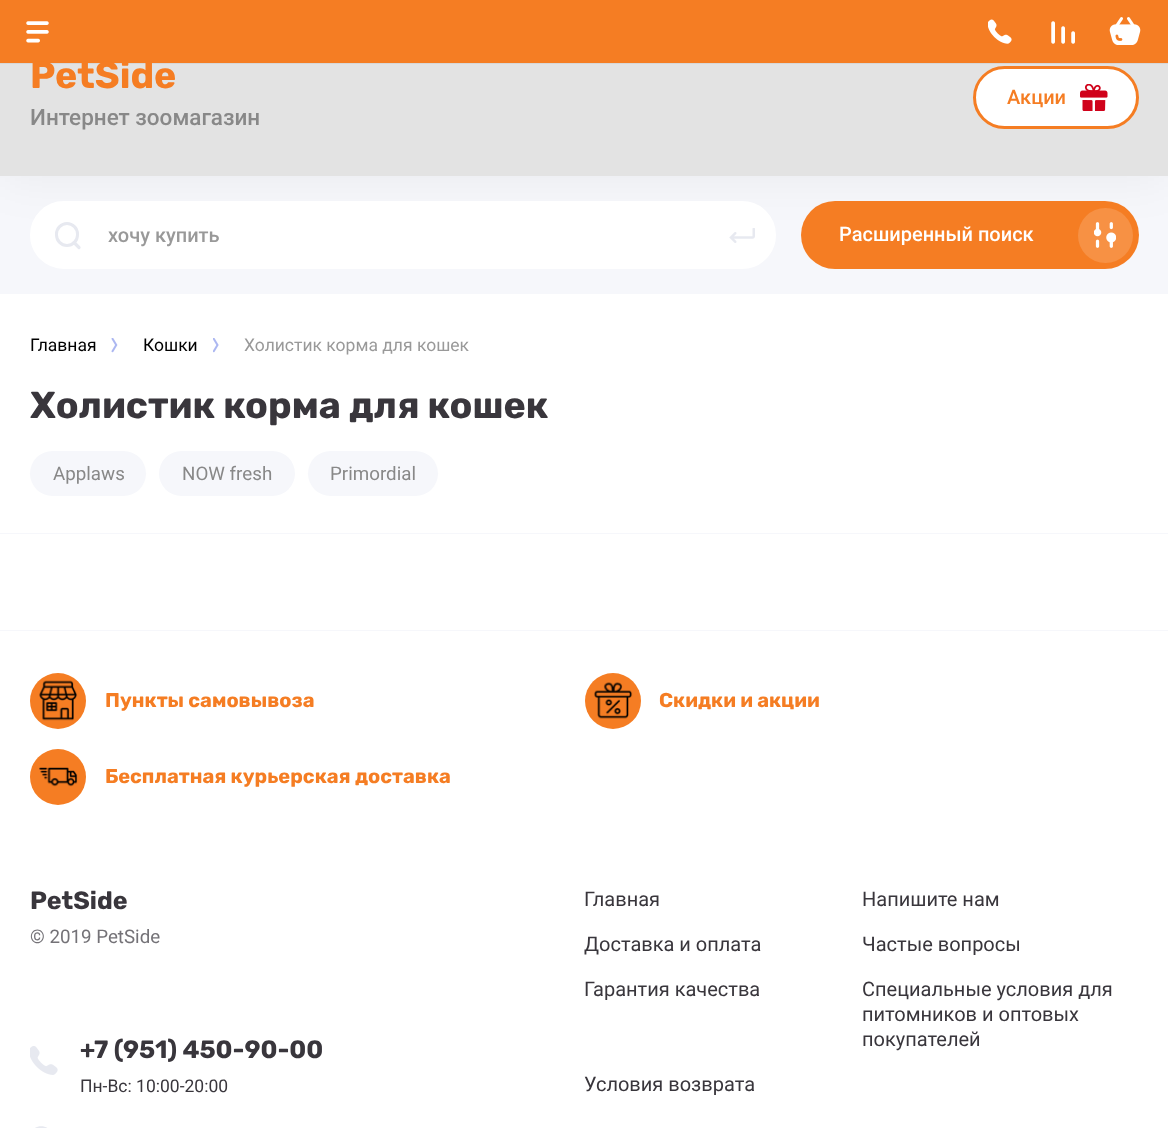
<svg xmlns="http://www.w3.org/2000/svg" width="1168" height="1128">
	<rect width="100%" height="100%" fill="#F6F7FB" />
	<rect x="0" y="20" width="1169" height="158" fill="#000000" fill-opacity="0.05" filter="blur(25px)" />
	<rect x="0" y="63" width="1168" height="113" fill="#E3E3E3" />
	<path d="M0 62V64H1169V1V62Z" fill="#000000" fill-opacity="0.05" />
	<rect x="0" y="0" width="1168" height="63" fill="#F57D23" />
	<image x="26" y="21" width="23" height="22" href="assets/img1.png" />
	<image x="988" y="19" width="24" height="25" href="assets/img2.png" />
	<image x="1051" y="21" width="24" height="23" href="assets/img3.png" />
	<image x="1109" y="17" width="32" height="28" href="assets/img4.png" />
	<text x="30" y="88" font-family="Rubik" font-size="37.5" font-weight="700" fill="#F57D23">PetSide</text>
	<text x="30" y="125" font-family="Roboto" font-size="22.5" font-weight="500" fill="#888888">Интернет зоомагазин</text>
	<rect x="974.5" y="67.5" width="163" height="60" rx="30" fill="#FFFFFF" stroke="#F57D23" stroke-width="3" />
	<text x="1007" y="104" font-family="Roboto" font-size="20" font-weight="500" fill="#F57D23">Акции</text>
	<image x="1080" y="84" width="28" height="27" href="assets/img5.png" />
	<rect x="31.5" y="202.5" width="743" height="65" rx="32.5" fill="#FFFFFF" stroke="#FFFFFF" stroke-width="3" />
	<rect x="56.5" y="223.5" width="21" height="22" rx="10.5" fill="none" stroke="#E7E9F0" stroke-width="3" />
	<path d="M74 242.5L79 247.5" fill="none" stroke="#E7E9F0" stroke-width="3.2" stroke-linecap="round" />
	<text x="108" y="242" font-family="Roboto" font-size="20" font-weight="500" fill="#999999">хочу купить</text>
	<image x="729" y="228" width="26" height="15" href="assets/img6.png" />
	<rect x="801" y="201" width="338" height="68" rx="34" fill="#F57D23" />
	<text x="839" y="241" font-family="Roboto" font-size="20" font-weight="500" fill="#FFFFFF">Расширенный поиск</text>
	<circle cx="1105.5" cy="235.5" r="27.5" fill="#F79144" />
	<image x="1094" y="222" width="22" height="26" href="assets/img7.png" />
	<rect x="0" y="294" width="1168" height="336" fill="#FFFFFF" />
	<rect x="0" y="533" width="1168" height="1" fill="#F6F7FB" />
	<text x="30" y="351" font-family="Roboto" font-size="17.5" fill="#000000">Главная</text>
	<image x="111" y="338" width="7" height="15" href="assets/img8.png" />
	<text x="143" y="351" font-family="Roboto" font-size="17.5" fill="#000000">Кошки</text>
	<image x="213" y="338" width="6" height="15" href="assets/img9.png" />
	<text x="244" y="351" font-family="Roboto" font-size="17.5" fill="#999999">Холистик корма для кошек</text>
	<text x="30" y="418" font-family="Rubik" font-size="37.5" font-weight="700" fill="#39363C">Холистик корма для кошек</text>
	<rect x="30" y="451" width="116" height="45" rx="22.5" fill="#F6F7FB" />
	<text x="53" y="480" font-family="Roboto" font-size="18.75" fill="#888888">Applaws</text>
	<rect x="159" y="451" width="136" height="45" rx="22.5" fill="#F6F7FB" />
	<text x="182" y="480" font-family="Roboto" font-size="18.75" fill="#888888">NOW fresh</text>
	<rect x="308" y="451" width="130" height="45" rx="22.5" fill="#F6F7FB" />
	<text x="330" y="480" font-family="Roboto" font-size="18.75" fill="#888888">Primordial</text>
	<rect x="0" y="631" width="1168" height="497" fill="#FFFFFF" />
	<circle cx="58" cy="701" r="28" fill="#F57D23" />
	<image x="39" y="680" width="39" height="41" href="assets/img10.png" />
	<text x="105" y="707" font-family="Rubik" font-size="20" font-weight="700" fill="#F57D23">Пункты самовывоза</text>
	<circle cx="613" cy="701" r="28" fill="#F57D23" />
	<image x="594" y="682" width="39" height="37" href="assets/img11.png" />
	<text x="659" y="707" font-family="Rubik" font-size="20" font-weight="700" fill="#F57D23">Скидки и акции</text>
	<circle cx="58" cy="777" r="28" fill="#F57D23" />
	<image x="39" y="767" width="39" height="20" href="assets/img12.png" />
	<text x="105" y="783" font-family="Rubik" font-size="20" font-weight="700" fill="#F57D23">Бесплатная курьерская доставка</text>
	<text x="30" y="909" font-family="Rubik" font-size="25" font-weight="700" fill="#39363C">PetSide</text>
	<text x="30" y="943" font-family="Roboto" font-size="18.75" fill="#747277">© 2019 PetSide</text>
	<image x="30" y="1046" width="28" height="29" href="assets/img13.png" />
	<text x="80" y="1058" font-family="Rubik" font-size="25" font-weight="700" fill="#39363C">+7 (951) 450-90-00</text>
	<text x="80" y="1092" font-family="Roboto" font-size="17.5" fill="#39363C">Пн-Вс: 10:00-20:00</text>
	<path d="M52.5 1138C52.5 1116 10.5 1126.5 41 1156C41 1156 52.5 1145 52.5 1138ZM41 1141C46 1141 46 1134 41 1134C36.5 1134 36.5 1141 41 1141Z" fill="#E7E9F0" fill-rule="evenodd" />
	<g font-family="Roboto" font-size="20" fill="#39363C">
		<text x="584" y="906">Главная</text>
		<text x="862" y="906">Напишите нам</text>
		<text x="584" y="951">Доставка и оплата</text>
		<text x="862" y="951">Частые вопросы</text>
		<text x="584" y="996">Гарантия качества</text>
		<text x="862" y="996">Специальные условия для</text>
		<text x="862" y="1021">питомников и оптовых</text>
		<text x="862" y="1046">покупателей</text>
		<text x="584" y="1091">Условия возврата</text>
	</g>
</svg>
